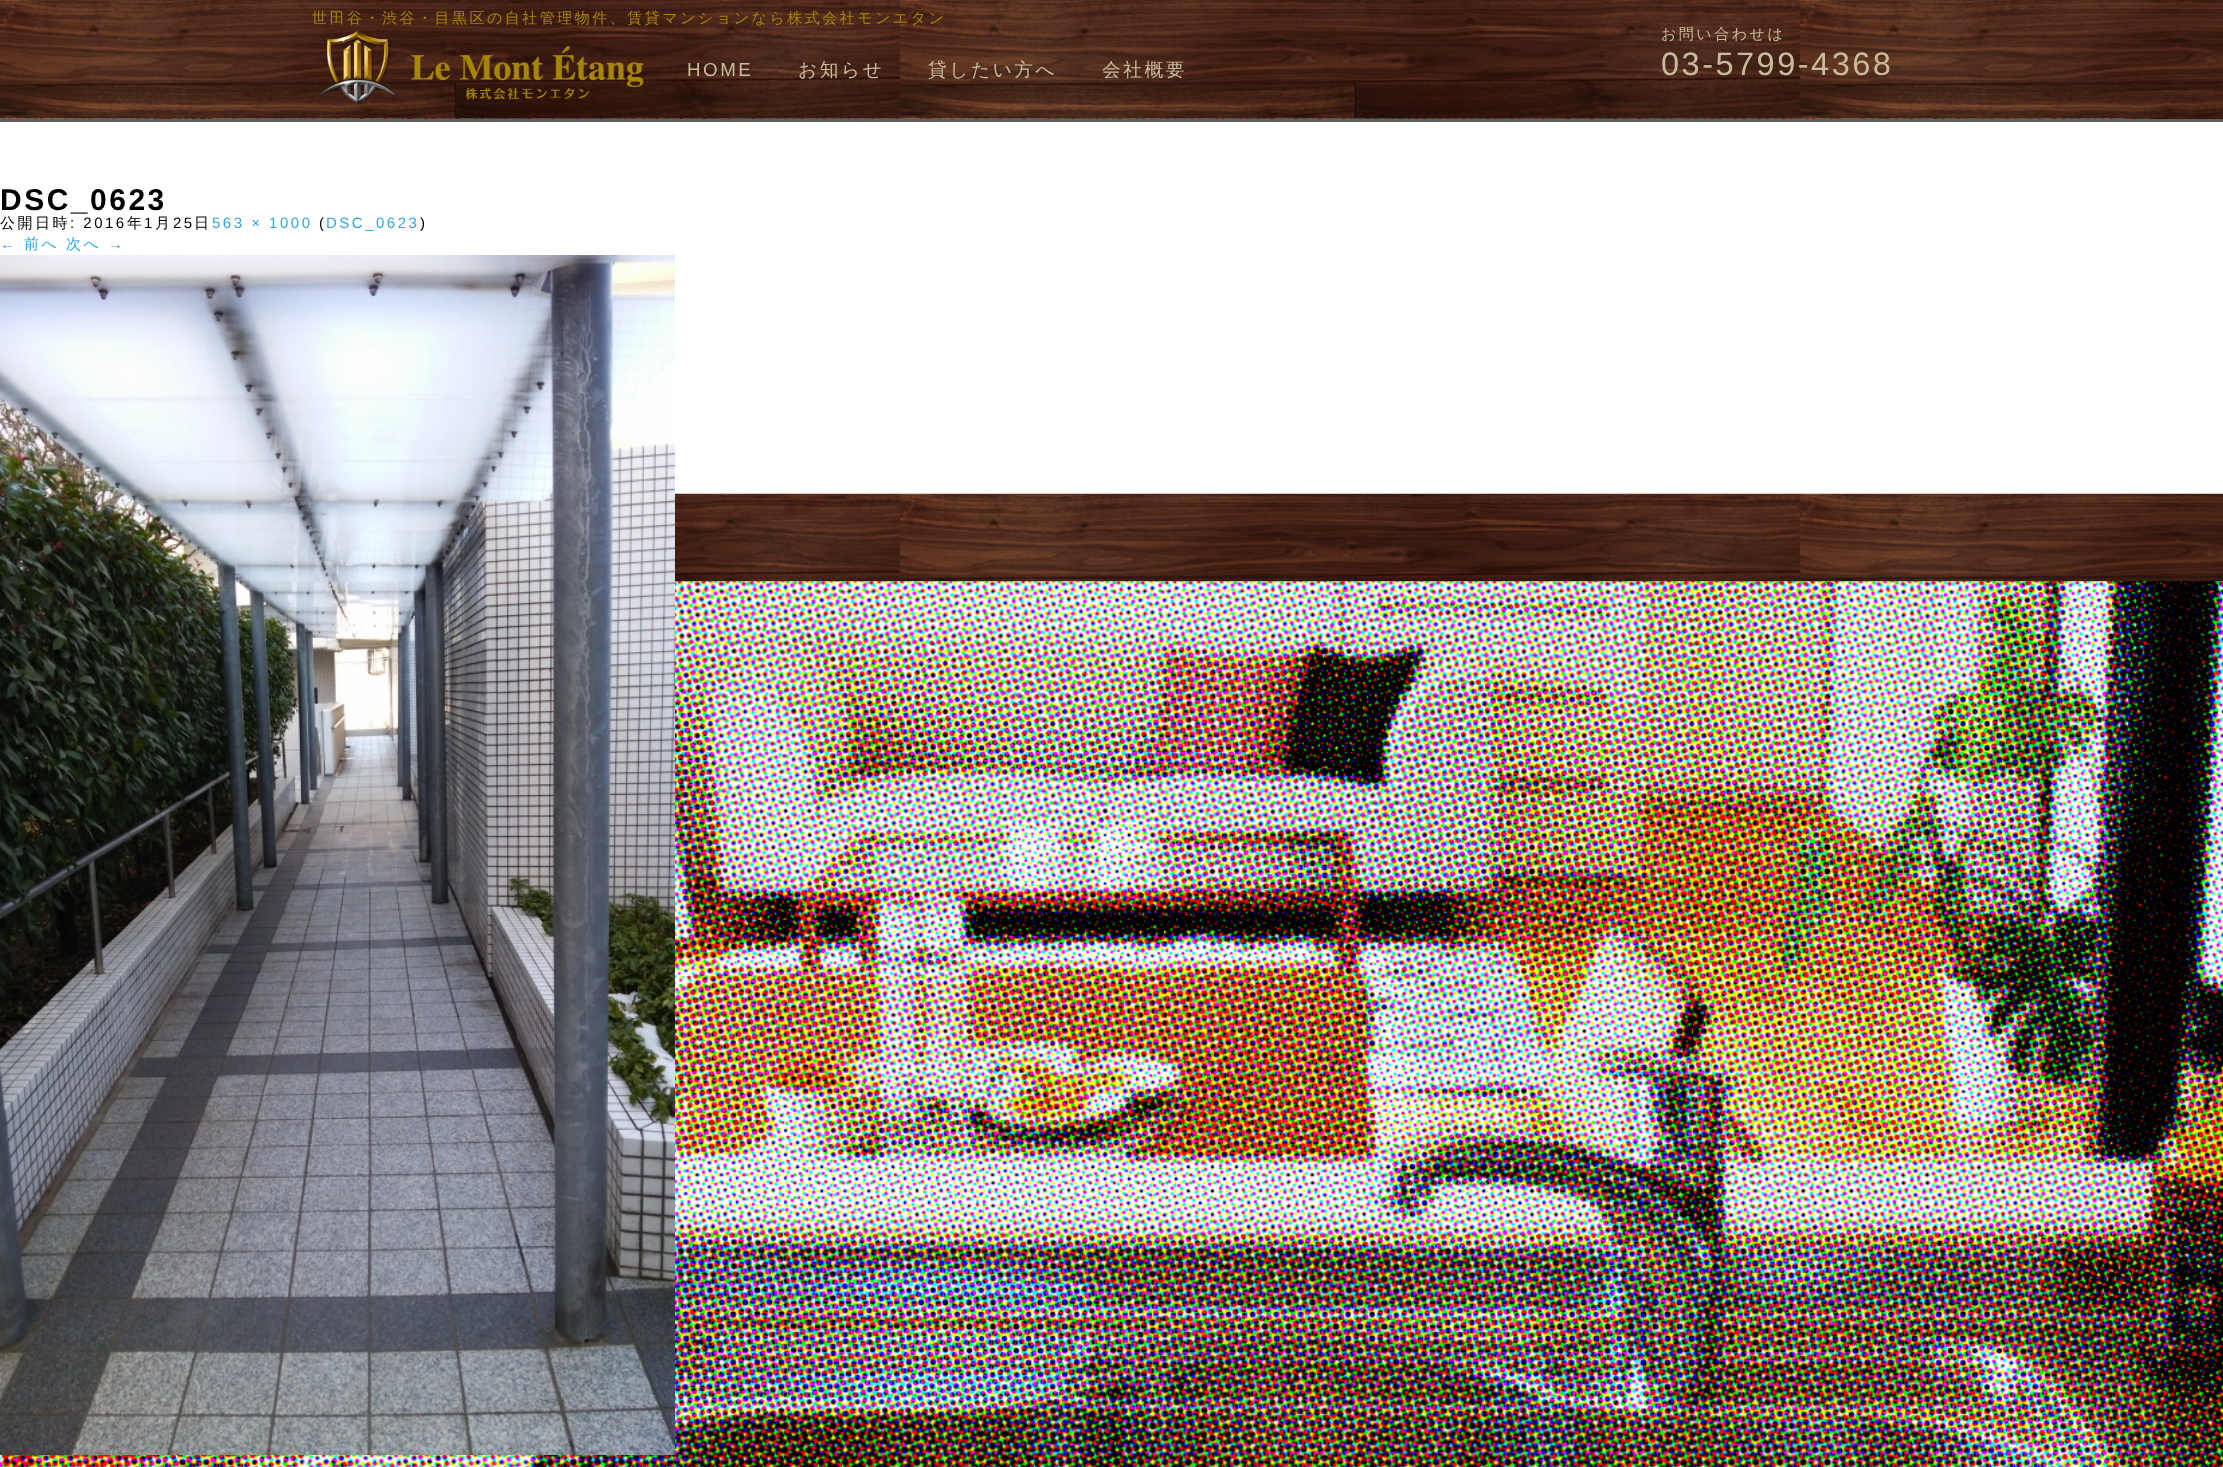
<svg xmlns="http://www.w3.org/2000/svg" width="2223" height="1467">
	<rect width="100%" height="100%" fill="#FFFFFF" />
	<image x="0" y="118" width="2223" height="1349" href="assets/img1.png" />
	<image x="0" y="0" width="2223" height="119" href="assets/img2.png" />
	<text x="312" y="23" font-family="WenQuanYi Zen Hei" font-size="15" font-weight="500" letter-spacing="2.5" fill="#A78608">世田谷・渋谷・目黒区の自社管理物件、賃貸マンションなら株式会社モンエタン</text>
	<image x="320" y="31" width="324" height="74" href="assets/img3.png" />
	<text x="687" y="76" font-family="Liberation Sans" font-size="18.75" letter-spacing="2.5" fill="#C9BC9C">HOME</text>
	<g font-family="WenQuanYi Zen Hei" font-size="18.75" font-weight="500" letter-spacing="2.5" fill="#C9BC9C">
		<text x="798" y="76">お知らせ</text>
		<text x="928" y="76">貸したい方へ</text>
		<text x="1102" y="76">会社概要</text>
	</g>
	<text x="1661" y="39" font-family="WenQuanYi Zen Hei" font-size="15" font-weight="500" letter-spacing="2.5" fill="#C9BC9C">お問い合わせは</text>
	<text x="1661" y="75" font-family="Liberation Sans" font-size="32.5" letter-spacing="2.5" fill="#C9BC9C">03-5799-4368</text>
	<rect x="0" y="122" width="2223" height="372" fill="#FFFFFF" />
	<rect x="0" y="119" width="2223" height="3" fill="#5F5F5F" />
	<text x="0" y="210" font-family="Liberation Sans" font-size="30" font-weight="700" letter-spacing="2.5" fill="#000000">DSC_0623</text>
	<text x="0" y="228" font-family="WenQuanYi Zen Hei" font-size="15" font-weight="500" letter-spacing="2.5" fill="#000000">公開日時</text>
	<text x="70" y="228" font-family="Liberation Sans" font-size="15" letter-spacing="2.5" fill="#000000">: 2016</text>
	<text x="127" y="228" font-family="WenQuanYi Zen Hei" font-size="15" font-weight="500" letter-spacing="2.5" fill="#000000">年</text>
	<text x="144" y="228" font-family="Liberation Sans" font-size="15" letter-spacing="2.5" fill="#000000">1</text>
	<text x="155" y="228" font-family="WenQuanYi Zen Hei" font-size="15" font-weight="500" letter-spacing="2.5" fill="#000000">月</text>
	<text x="173" y="228" font-family="Liberation Sans" font-size="15" letter-spacing="2.5" fill="#000000">25</text>
	<text x="194" y="228" font-family="WenQuanYi Zen Hei" font-size="15" font-weight="500" letter-spacing="2.5" fill="#000000">日</text>
	<text x="212" y="228" font-family="Liberation Sans" font-size="15" letter-spacing="2.5" fill="#2EA7E0">563 × 1000</text>
	<text x="319" y="228" font-family="Liberation Sans" font-size="15" letter-spacing="2.5" fill="#000000">(</text>
	<text x="326" y="228" font-family="Liberation Sans" font-size="15" letter-spacing="2.5" fill="#2EA7E0">DSC_0623</text>
	<text x="420" y="228" font-family="Liberation Sans" font-size="15" letter-spacing="2.5" fill="#000000">)</text>
	<text x="0" y="249" font-family="Liberation Sans" font-size="15" letter-spacing="2.5" fill="#2EA7E0">←</text>
	<g font-family="WenQuanYi Zen Hei" font-size="15" font-weight="500" letter-spacing="2.5" fill="#2EA7E0">
		<text x="24" y="249">前へ</text>
		<text x="66" y="249">次へ</text>
	</g>
	<text x="108" y="249" font-family="Liberation Sans" font-size="15" letter-spacing="2.5" fill="#2EA7E0">→</text>
	<image x="0" y="255" width="675" height="1200" href="assets/img4.png" />
	<image x="675" y="493" width="1548" height="89" href="assets/img5.png" />
</svg>
